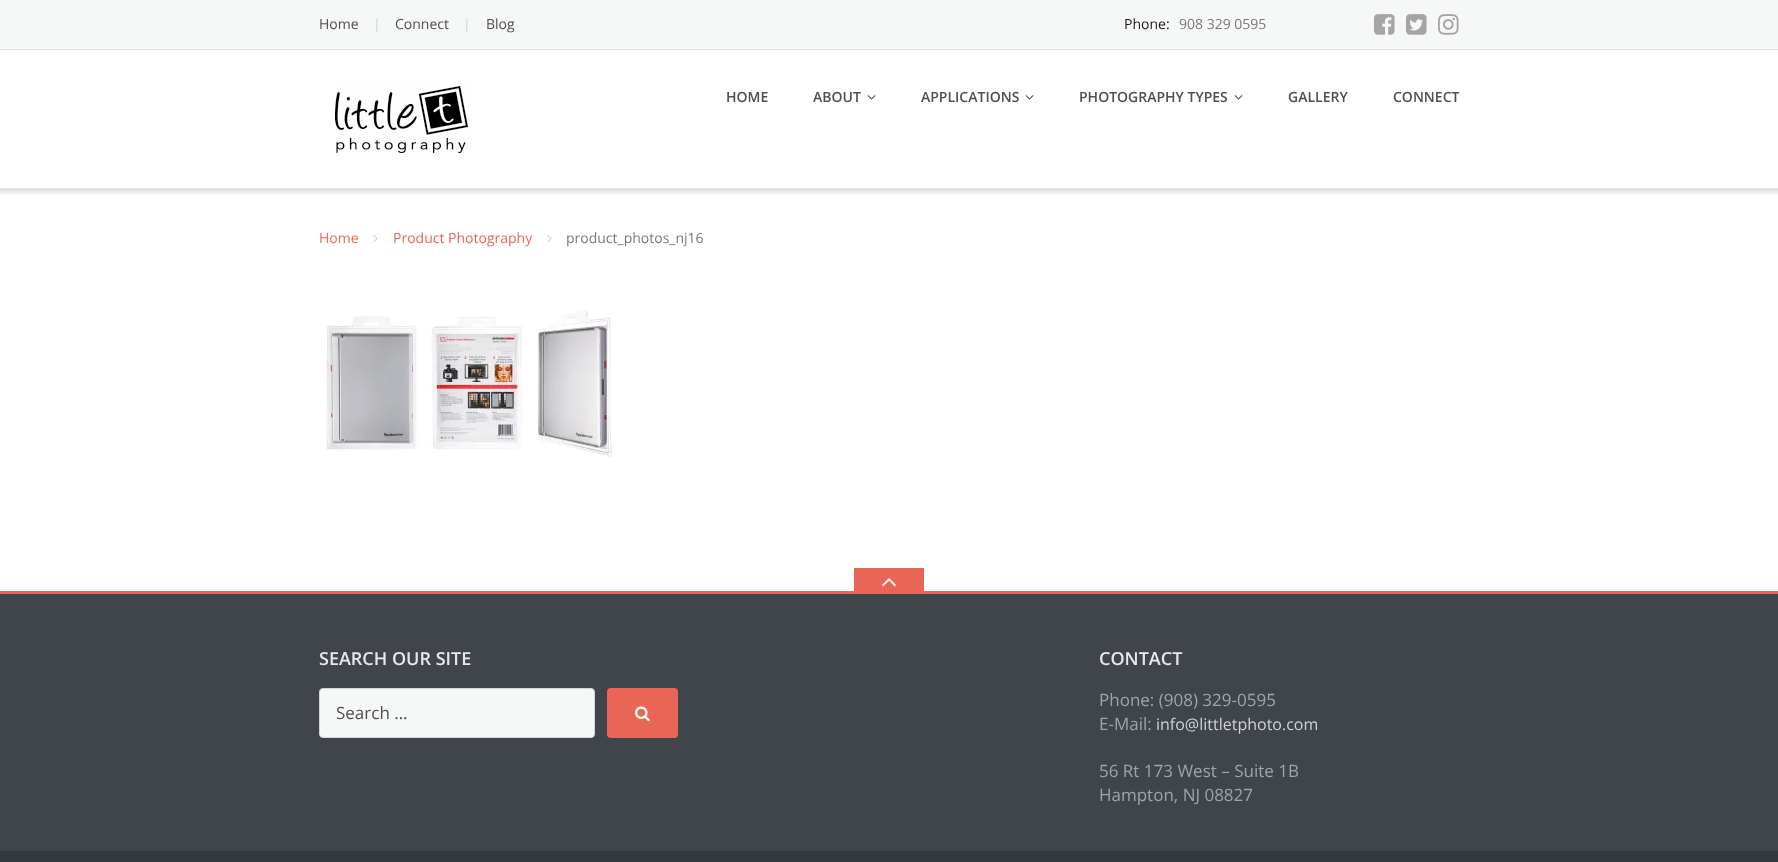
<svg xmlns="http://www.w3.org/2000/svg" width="1778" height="862">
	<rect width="100%" height="100%" fill="#FFFFFF" />
	<rect x="0" y="0" width="1778" height="49" fill="#F6F7F7" />
	<rect x="0" y="49" width="1778" height="1" fill="#D9DDE0" />
	<text x="319" y="29" font-family="Open Sans" font-size="14" fill="#4F4F4F">Home</text>
	<text x="373" y="29" font-family="Open Sans" font-size="14" fill="#CFD3D7">|</text>
	<text x="395" y="29" font-family="Open Sans" font-size="14" fill="#4F4F4F">Connect</text>
	<text x="463" y="29" font-family="Open Sans" font-size="14" fill="#CFD3D7">|</text>
	<text x="486" y="29" font-family="Open Sans" font-size="14" fill="#4F4F4F">Blog</text>
	<text x="1124" y="29" font-family="Open Sans" font-size="14" fill="#1B1B1B">Phone:</text>
	<text x="1179" y="29" font-family="Open Sans" font-size="14" fill="#797979">908 329 0595</text>
	<image x="1374" y="14" width="21" height="21" href="assets/img1.png" />
	<image x="1406" y="14" width="21" height="21" href="assets/img2.png" />
	<image x="1438" y="14" width="21" height="21" href="assets/img3.png" />
	<image x="335" y="82" width="136" height="71" href="assets/img4.png" />
	<g font-family="Open Sans" font-size="14" font-weight="600" fill="#4F4F4F">
		<text x="726" y="102">HOME</text>
		<text x="813" y="102">ABOUT</text>
	</g>
	<image x="867" y="95" width="9" height="5" href="assets/img5.png" />
	<text x="921" y="102" font-family="Open Sans" font-size="14" font-weight="600" fill="#4F4F4F">APPLICATIONS</text>
	<image x="1025" y="95" width="9" height="5" href="assets/img5.png" />
	<text x="1079" y="102" font-family="Open Sans" font-size="14" font-weight="600" fill="#4F4F4F">PHOTOGRAPHY TYPES</text>
	<image x="1234" y="95" width="9" height="5" href="assets/img5.png" />
	<g font-family="Open Sans" font-size="14" font-weight="600" fill="#4F4F4F">
		<text x="1288" y="102">GALLERY</text>
		<text x="1393" y="102">CONNECT</text>
	</g>
	<image x="0" y="188" width="1778" height="7" href="assets/img6.png" />
	<text x="319" y="243" font-family="Open Sans" font-size="14" fill="#E96656">Home</text>
	<image x="373" y="234" width="5" height="9" href="assets/img7.png" />
	<text x="393" y="243" font-family="Open Sans" font-size="14" fill="#E96656">Product Photography</text>
	<image x="547" y="234" width="5" height="9" href="assets/img7.png" />
	<text x="566" y="243" font-family="Open Sans" font-size="14" fill="#797979">product_photos_nj16</text>
	<image x="326" y="310" width="287" height="148" href="assets/img8.png" />
	<rect x="0" y="591" width="1778" height="3" fill="#E96656" />
	<rect x="854" y="568" width="70" height="23" fill="#E96656" />
	<image x="882" y="578" width="14" height="9" href="assets/img9.png" />
	<rect x="0" y="594" width="1778" height="257" fill="#40454B" />
	<text x="319" y="665" font-family="Open Sans" font-size="18" font-weight="600" fill="#E8E8E8">SEARCH OUR SITE</text>
	<rect x="319.5" y="688.5" width="275" height="49" rx="3.5" fill="#F6F7F7" stroke="#D4D4D4" />
	<text x="336" y="719" font-family="Open Sans" font-size="17" fill="#4F4F4F">Search …</text>
	<rect x="607" y="688" width="71" height="50" rx="4" fill="#E96656" />
	<image x="635" y="706" width="15" height="16" href="assets/img10.png" />
	<text x="1099" y="665" font-family="Open Sans" font-size="18" font-weight="600" fill="#E8E8E8">CONTACT</text>
	<g font-family="Open Sans" font-size="17" fill="#9FA4A9">
		<text x="1099" y="706">Phone: (908) 329-0595</text>
		<text x="1099" y="730">E-Mail:</text>
	</g>
	<text x="1156" y="730" font-family="Open Sans" font-size="16" fill="#CFD3D7">info@littletphoto.com</text>
	<g font-family="Open Sans" font-size="17" fill="#9FA4A9">
		<text x="1099" y="777">56 Rt 173 West – Suite 1B</text>
		<text x="1099" y="801">Hampton, NJ 08827</text>
	</g>
	<rect x="0" y="851" width="1778" height="11" fill="#34393F" />
</svg>
